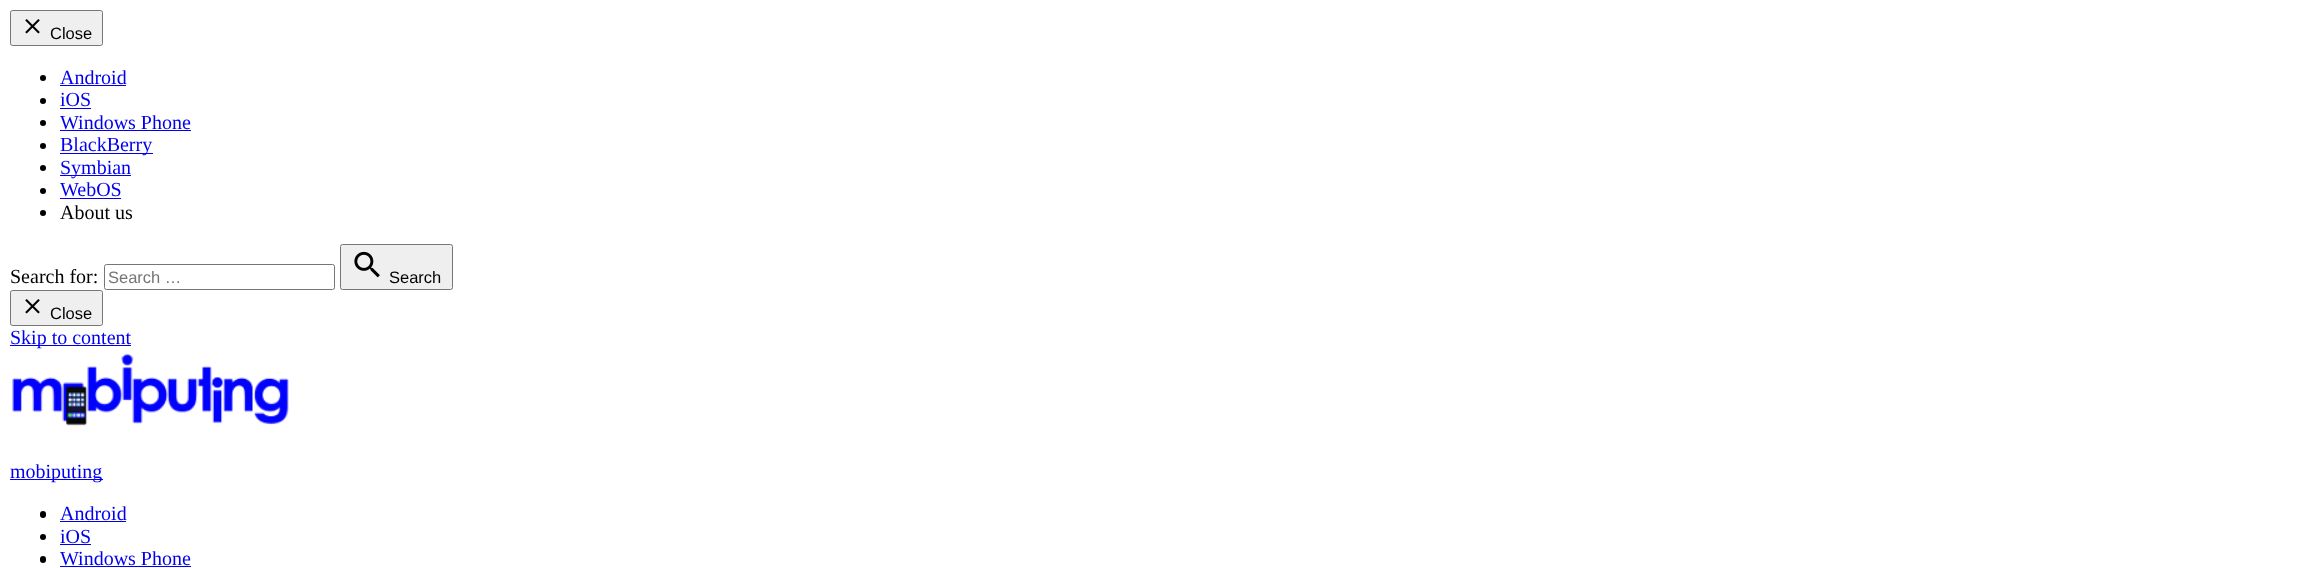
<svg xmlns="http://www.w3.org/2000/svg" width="2319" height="568">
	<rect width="100%" height="100%" fill="#FFFFFF" />
	<rect x="10.5" y="10.5" width="92" height="35" rx="2" fill="#EFEFEF" stroke="#767676" />
	<image x="25" y="19" width="15" height="15" href="assets/img1.png" />
	<text x="50" y="39" font-family="Liberation Sans" font-size="16.5" fill="#000000">Close</text>
	<circle cx="43" cy="78" r="3" fill="#000000" />
	<text x="60" y="84" font-family="Liberation Serif" font-size="20" fill="#0000EE">Android</text>
	<rect x="60" y="85" width="66" height="1" fill="#0000EE" />
	<circle cx="43" cy="101" r="3" fill="#000000" />
	<text x="60" y="106" font-family="Liberation Serif" font-size="20" fill="#0000EE">iOS</text>
	<rect x="60" y="108" width="31" height="1" fill="#0000EE" />
	<circle cx="43" cy="123" r="3" fill="#000000" />
	<text x="60" y="129" font-family="Liberation Serif" font-size="20" fill="#0000EE">Windows Phone</text>
	<rect x="60" y="130" width="131" height="1" fill="#0000EE" />
	<circle cx="43" cy="146" r="3" fill="#000000" />
	<rect x="60" y="153" width="93" height="1" fill="#0000EE" />
	<text x="60" y="151" font-family="Liberation Serif" font-size="20" fill="#0000EE">BlackBerry</text>
	<circle cx="43" cy="168" r="3" fill="#000000" />
	<rect x="60" y="175" width="71" height="1" fill="#0000EE" />
	<text x="60" y="174" font-family="Liberation Serif" font-size="20" fill="#0000EE">Symbian</text>
	<circle cx="43" cy="191" r="3" fill="#000000" />
	<text x="60" y="196" font-family="Liberation Serif" font-size="20" fill="#0000EE">WebOS</text>
	<rect x="60" y="198" width="61" height="1" fill="#0000EE" />
	<circle cx="43" cy="213" r="3" fill="#000000" />
	<g font-family="Liberation Serif" font-size="20" fill="#000000">
		<text x="60" y="219">About us</text>
		<text x="10" y="283">Search for:</text>
	</g>
	<rect x="104.5" y="264.5" width="230" height="25" rx="2" fill="none" stroke="#767676" />
	<text x="108" y="283" font-family="Liberation Sans" font-size="16.5" fill="#757575">Search …</text>
	<rect x="340.5" y="244.5" width="112" height="45" rx="2" fill="#EFEFEF" stroke="#767676" />
	<image x="354" y="251" width="26" height="27" href="assets/img2.png" />
	<text x="389" y="283" font-family="Liberation Sans" font-size="16.5" fill="#000000">Search</text>
	<rect x="10.5" y="290.5" width="92" height="35" rx="2" fill="#EFEFEF" stroke="#767676" />
	<image x="25" y="299" width="15" height="15" href="assets/img1.png" />
	<text x="50" y="319" font-family="Liberation Sans" font-size="16.5" fill="#000000">Close</text>
	<rect x="10" y="345" width="121" height="1" fill="#0000EE" />
	<text x="10" y="344" font-family="Liberation Serif" font-size="20" fill="#0000EE">Skip to content</text>
	<image x="12" y="353" width="277" height="73" href="assets/img3.png" />
	<rect x="10" y="479" width="93" height="1" fill="#0000EE" />
	<text x="10" y="478" font-family="Liberation Serif" font-size="20" fill="#0000EE">mobiputing</text>
	<rect x="40" y="511" width="6" height="7" rx="3" fill="#000000" />
	<text x="60" y="520" font-family="Liberation Serif" font-size="20" fill="#0000EE">Android</text>
	<rect x="60" y="521" width="66" height="1" fill="#0000EE" />
	<circle cx="43" cy="537" r="3" fill="#000000" />
	<text x="60" y="543" font-family="Liberation Serif" font-size="20" fill="#0000EE">iOS</text>
	<rect x="60" y="544" width="31" height="1" fill="#0000EE" />
	<rect x="40" y="556" width="6" height="7" rx="3" fill="#000000" />
	<text x="60" y="565" font-family="Liberation Serif" font-size="20" fill="#0000EE">Windows Phone</text>
	<rect x="60" y="566" width="131" height="1" fill="#0000EE" />
</svg>
